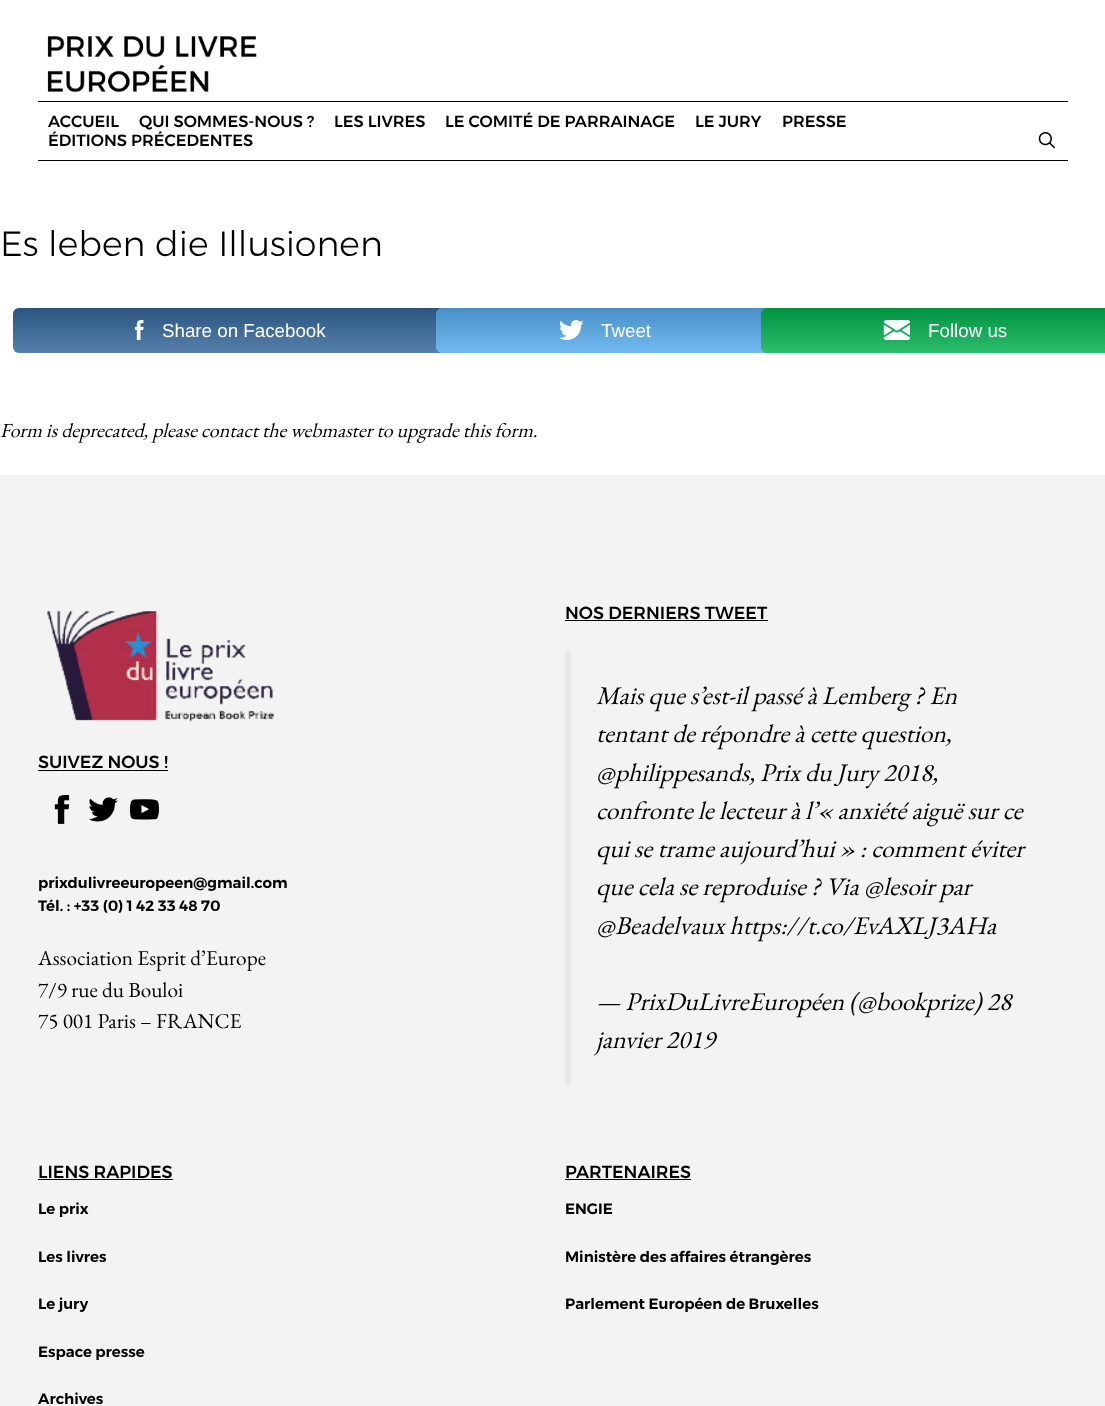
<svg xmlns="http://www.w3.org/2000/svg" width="1105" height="1406">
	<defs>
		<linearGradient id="g1" gradientUnits="userSpaceOnUse" x1="231" y1="307" x2="231" y2="353"><stop offset="0" stop-color="#000000" stop-opacity="0.17" /><stop offset="1" stop-color="#FFFFFF" stop-opacity="0.17" /></linearGradient>
		<linearGradient id="g2" gradientUnits="userSpaceOnUse" x1="605" y1="307" x2="605" y2="353"><stop offset="0" stop-color="#000000" stop-opacity="0.17" /><stop offset="1" stop-color="#FFFFFF" stop-opacity="0.17" /></linearGradient>
		<linearGradient id="g3" gradientUnits="userSpaceOnUse" x1="946" y1="307" x2="946" y2="353"><stop offset="0" stop-color="#000000" stop-opacity="0.17" /><stop offset="1" stop-color="#FFFFFF" stop-opacity="0.17" /></linearGradient>
	</defs>
	<rect width="100%" height="100%" fill="#FFFFFF" />
	<image x="47" y="36" width="210" height="57" href="assets/img1.png" />
	<rect x="38" y="101" width="1030" height="1" fill="#000000" />
	<rect x="38" y="160" width="1030" height="1" fill="#000000" />
	<g font-family="Montserrat" font-size="16.25" font-weight="500" fill="#000000">
		<text x="48" y="127">ACCUEIL</text>
		<text x="139" y="127">QUI SOMMES-NOUS ?</text>
		<text x="334" y="127">LES LIVRES</text>
		<text x="445" y="127">LE COMITÉ DE PARRAINAGE</text>
		<text x="695" y="127">LE JURY</text>
		<text x="782" y="127">PRESSE</text>
		<text x="48" y="146">ÉDITIONS PRÉCEDENTES</text>
	</g>
	<image x="1038" y="132" width="17" height="17" href="assets/img2.png" />
	<text x="0" y="256" font-family="Montserrat" font-size="35" font-weight="300" fill="#000000">Es leben die Illusionen</text>
	<rect x="13" y="308" width="436" height="45" rx="6" fill="#336699" />
	<rect x="13" y="308" width="436" height="45" rx="6" fill="url(#g1)" />
	<image x="135" y="320" width="9" height="20" href="assets/img3.png" />
	<text x="162" y="337" font-family="Liberation Sans" font-size="18.75" fill="#FFFFFF">Share on Facebook</text>
	<rect x="436" y="308" width="338" height="45" rx="6" fill="#55ACEE" />
	<rect x="436" y="308" width="338" height="45" rx="6" fill="url(#g2)" />
	<image x="559" y="320" width="24" height="20" href="assets/img4.png" />
	<text x="601" y="337" font-family="Liberation Sans" font-size="18.75" fill="#FFFFFF">Tweet</text>
	<rect x="761" y="308" width="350" height="45" rx="6" fill="#00B04E" />
	<rect x="761" y="308" width="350" height="45" rx="6" fill="url(#g3)" />
	<image x="883" y="320" width="27" height="20" href="assets/img5.png" />
	<text x="928" y="337" font-family="Liberation Sans" font-size="18.75" fill="#FFFFFF">Follow us</text>
	<text x="0" y="437" font-family="EB Garamond" font-size="20" font-style="italic" fill="#000000">Form is deprecated, please contact the webmaster to upgrade this form.</text>
	<rect x="0" y="475" width="1105" height="931" fill="#F3F3F3" />
	<image x="47" y="610" width="227" height="112" href="assets/img6.png" />
	<text x="38" y="768" font-family="Montserrat" font-size="17.5" font-weight="500" fill="#000000">SUIVEZ NOUS !</text>
	<rect x="38" y="770" width="130" height="1" fill="#000000" />
	<image x="54" y="794" width="16" height="30" href="assets/img7.png" />
	<image x="88" y="797" width="30" height="25" href="assets/img8.png" />
	<image x="129" y="799" width="30" height="21" href="assets/img9.png" />
	<g font-family="Montserrat" font-size="15" font-weight="600" fill="#000000">
		<text x="38" y="888">prixdulivreeuropeen@gmail.com</text>
		<text x="38" y="911">Tél. : +33 (0) 1 42 33 48 70</text>
	</g>
	<g font-family="EB Garamond" font-size="21.25" fill="#000000">
		<text x="38" y="965">Association Esprit d’Europe</text>
		<text x="38" y="997">7/9 rue du Bouloi</text>
		<text x="38" y="1028">75 001 Paris – FRANCE</text>
	</g>
	<text x="565" y="619" font-family="Montserrat" font-size="17.5" font-weight="500" fill="#000000">NOS DERNIERS TWEET</text>
	<rect x="565" y="620" width="203" height="1" fill="#000000" />
	<rect x="565" y="651" width="6" height="433" fill="#E7E7E7" />
	<g font-family="EB Garamond" font-size="25.5" font-style="italic" fill="#000000">
		<text x="596" y="704">Mais que s’est-il passé à Lemberg ? En</text>
		<text x="596" y="742">tentant de répondre à cette question,</text>
		<text x="596" y="781">@philippesands, Prix du Jury 2018,</text>
		<text x="596" y="819">confronte le lecteur à l’« anxiété aiguë sur ce</text>
		<text x="596" y="857">qui se trame aujourd’hui » : comment éviter</text>
		<text x="596" y="895">que cela se reproduise ? Via @lesoir par</text>
		<text x="596" y="934">@Beadelvaux https://t.co/EvAXLJ3AHa</text>
		<text x="596" y="1010">— PrixDuLivreEuropéen (@bookprize) 28</text>
		<text x="596" y="1048">janvier 2019</text>
	</g>
	<text x="38" y="1178" font-family="Montserrat" font-size="17.5" font-weight="500" fill="#000000">LIENS RAPIDES</text>
	<rect x="38" y="1179" width="135" height="1" fill="#000000" />
	<g font-family="Montserrat" font-size="15" font-weight="600" fill="#000000">
		<text x="38" y="1214">Le prix</text>
		<text x="38" y="1262">Les livres</text>
		<text x="38" y="1309">Le jury</text>
		<text x="38" y="1357">Espace presse</text>
		<text x="38" y="1404">Archives</text>
	</g>
	<text x="565" y="1178" font-family="Montserrat" font-size="17.5" font-weight="500" fill="#000000">PARTENAIRES</text>
	<rect x="565" y="1179" width="126" height="1" fill="#000000" />
	<g font-family="Montserrat" font-size="15" font-weight="600" fill="#000000">
		<text x="565" y="1214">ENGIE</text>
		<text x="565" y="1262">Ministère des affaires étrangères</text>
		<text x="565" y="1309">Parlement Européen de Bruxelles</text>
	</g>
</svg>
